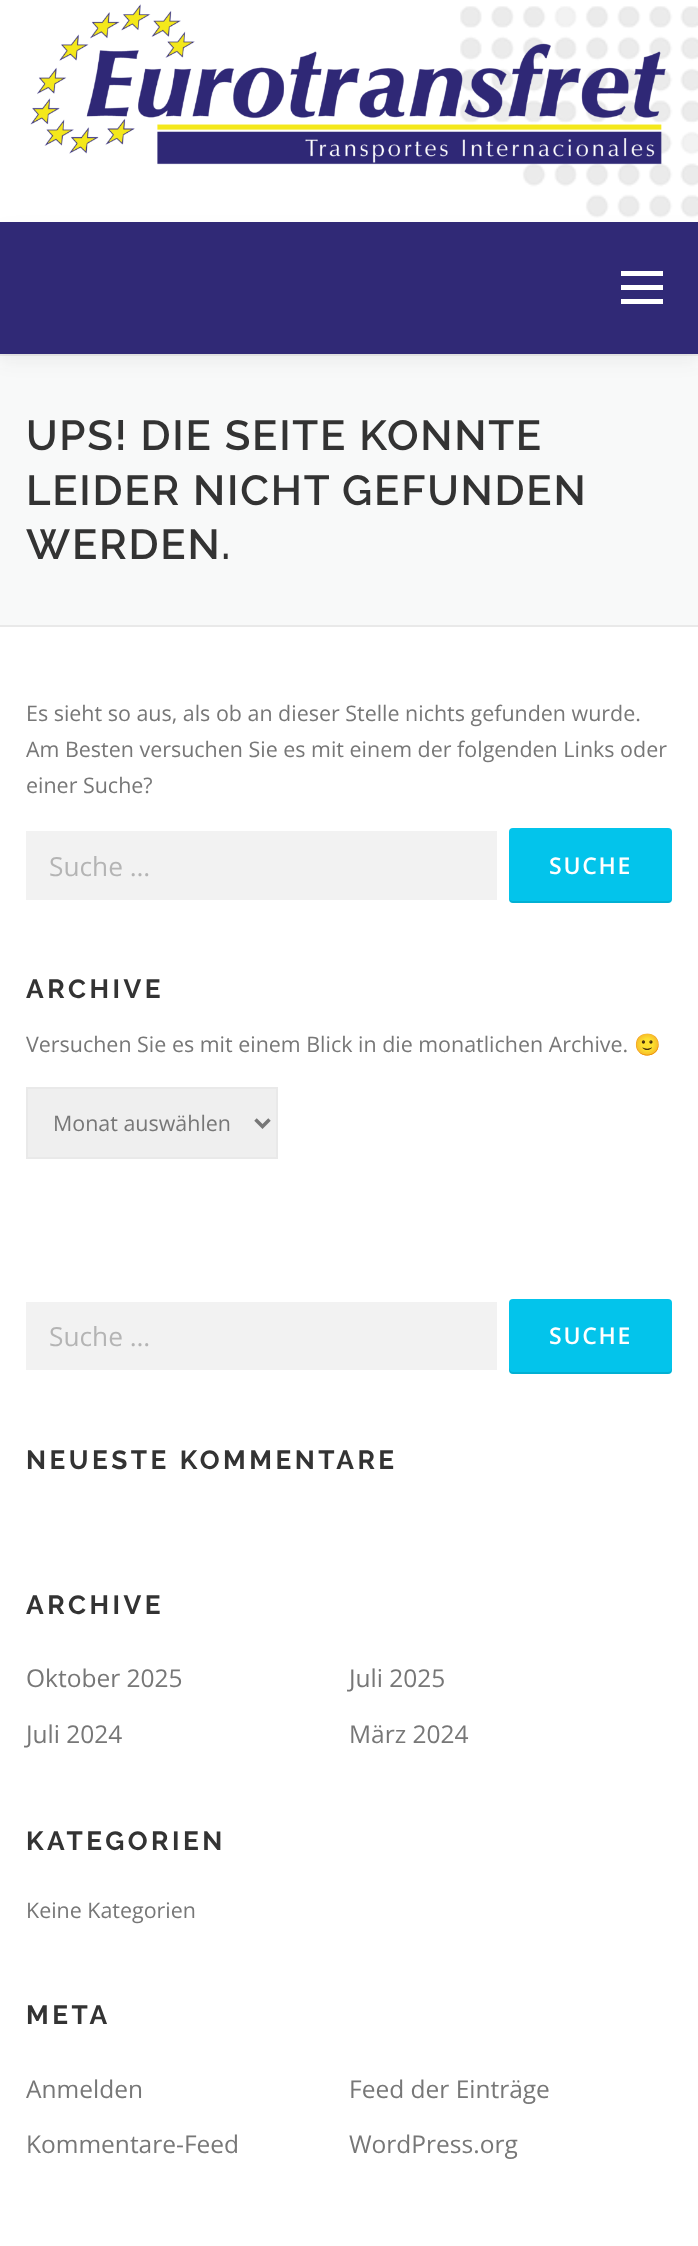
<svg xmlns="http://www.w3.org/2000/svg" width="698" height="2246">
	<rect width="100%" height="100%" fill="#FFFFFF" />
	<image x="460" y="6" width="238" height="212" href="assets/img1.png" />
	<image x="30" y="4" width="636" height="161" href="assets/img2.png" />
	<rect x="0" y="356" width="698" height="269" fill="#F8F9F9" />
	<rect x="0" y="354" width="698" height="2" fill="#E9E9E9" />
	<rect x="0" y="231" width="698" height="131" fill="#323232" fill-opacity="0.06" filter="blur(9px)" />
	<rect x="0" y="222" width="698" height="132" fill="#302976" />
	<rect x="621" y="285" width="42" height="5" fill="#FFFFFF" />
	<rect x="621" y="271" width="42" height="5" fill="#FFFFFF" />
	<rect x="621" y="299" width="42" height="5" fill="#FFFFFF" />
	<rect x="0" y="625" width="698" height="2" fill="#E9E9E9" />
	<g font-family="Raleway" font-size="42" font-weight="600" letter-spacing="1.75" fill="#333333">
		<text x="26" y="450">UPS! DIE SEITE KONNTE</text>
		<text x="26" y="505">LEIDER NICHT GEFUNDEN</text>
		<text x="26" y="559">WERDEN.</text>
	</g>
	<g font-family="Open Sans" font-size="21.45" fill="#777777">
		<text x="26" y="721">Es sieht so aus, als ob an dieser Stelle nichts gefunden wurde.</text>
		<text x="26" y="757">Am Besten versuchen Sie es mit einem der folgenden Links oder</text>
		<text x="26" y="793">einer Suche?</text>
	</g>
	<rect x="26" y="831" width="471" height="69" fill="#F2F2F2" />
	<text x="49" y="876" font-family="Open Sans" font-size="26.25" fill="#B4B4B4">Suche …</text>
	<rect x="509" y="828" width="163" height="75" rx="4" fill="#03C4EB" />
	<path d="M509 898C509 900 510 902 512 903H669C671 902 672 900 672 898C672 900 670 901 668 901H513C511 901 509 900 509 898Z" fill="#000000" fill-opacity="0.1" />
	<text x="549" y="874" font-family="Open Sans" font-size="23" font-weight="600" letter-spacing="1.75" fill="#FFFFFF">SUCHE</text>
	<text x="26" y="998" font-family="Raleway" font-size="26.25" font-weight="700" letter-spacing="3.5" fill="#333333">ARCHIVE</text>
	<text x="26" y="1052" font-family="Open Sans" font-size="21.45" fill="#777777">Versuchen Sie es mit einem Blick in die monatlichen Archive.</text>
	<text x="634" y="1052" font-family="Noto Color Emoji" font-size="21.45" fill="#777777">🙂</text>
	<rect x="27" y="1088" width="250" height="70" fill="#EFEFEF" stroke="#E9E9E9" stroke-width="2" />
	<path d="M255.5 1119.5L262.5 1126.5L269.5 1119.5" fill="none" stroke="#777777" stroke-width="3.5" />
	<text x="53" y="1131" font-family="Open Sans" font-size="21.45" fill="#777777">Monat auswählen</text>
	<rect x="26" y="1302" width="471" height="68" fill="#F2F2F2" />
	<text x="49" y="1346" font-family="Open Sans" font-size="26.25" fill="#B4B4B4">Suche …</text>
	<rect x="509" y="1299" width="163" height="75" rx="4" fill="#03C4EB" />
	<path d="M509 1368V1370C509 1372 511 1374 513 1374H668C670 1374 672 1372 672 1370V1368C672 1370 670 1372 668 1372H513C511 1372 509 1370 509 1368Z" fill="#000000" fill-opacity="0.1" />
	<text x="549" y="1344" font-family="Open Sans" font-size="23" font-weight="600" letter-spacing="1.75" fill="#FFFFFF">SUCHE</text>
	<g font-family="Raleway" font-size="26.25" font-weight="700" letter-spacing="3.5" fill="#333333">
		<text x="26" y="1469">NEUESTE KOMMENTARE</text>
		<text x="26" y="1614">ARCHIVE</text>
	</g>
	<g font-family="Open Sans" font-size="24.5" fill="#777777">
		<text x="26" y="1687">Oktober 2025</text>
		<text x="349" y="1687">Juli 2025</text>
		<text x="26" y="1743">Juli 2024</text>
		<text x="349" y="1743">März 2024</text>
	</g>
	<text x="26" y="1850" font-family="Raleway" font-size="26.25" font-weight="700" letter-spacing="3.5" fill="#333333">KATEGORIEN</text>
	<text x="26" y="1918" font-family="Open Sans" font-size="21.45" fill="#777777">Keine Kategorien</text>
	<text x="26" y="2024" font-family="Raleway" font-size="26.25" font-weight="700" letter-spacing="3.5" fill="#333333">META</text>
	<g font-family="Open Sans" font-size="24.5" fill="#777777">
		<text x="26" y="2098">Anmelden</text>
		<text x="349" y="2098">Feed der Einträge</text>
		<text x="26" y="2153">Kommentare-Feed</text>
		<text x="349" y="2153">WordPress.org</text>
	</g>
</svg>
